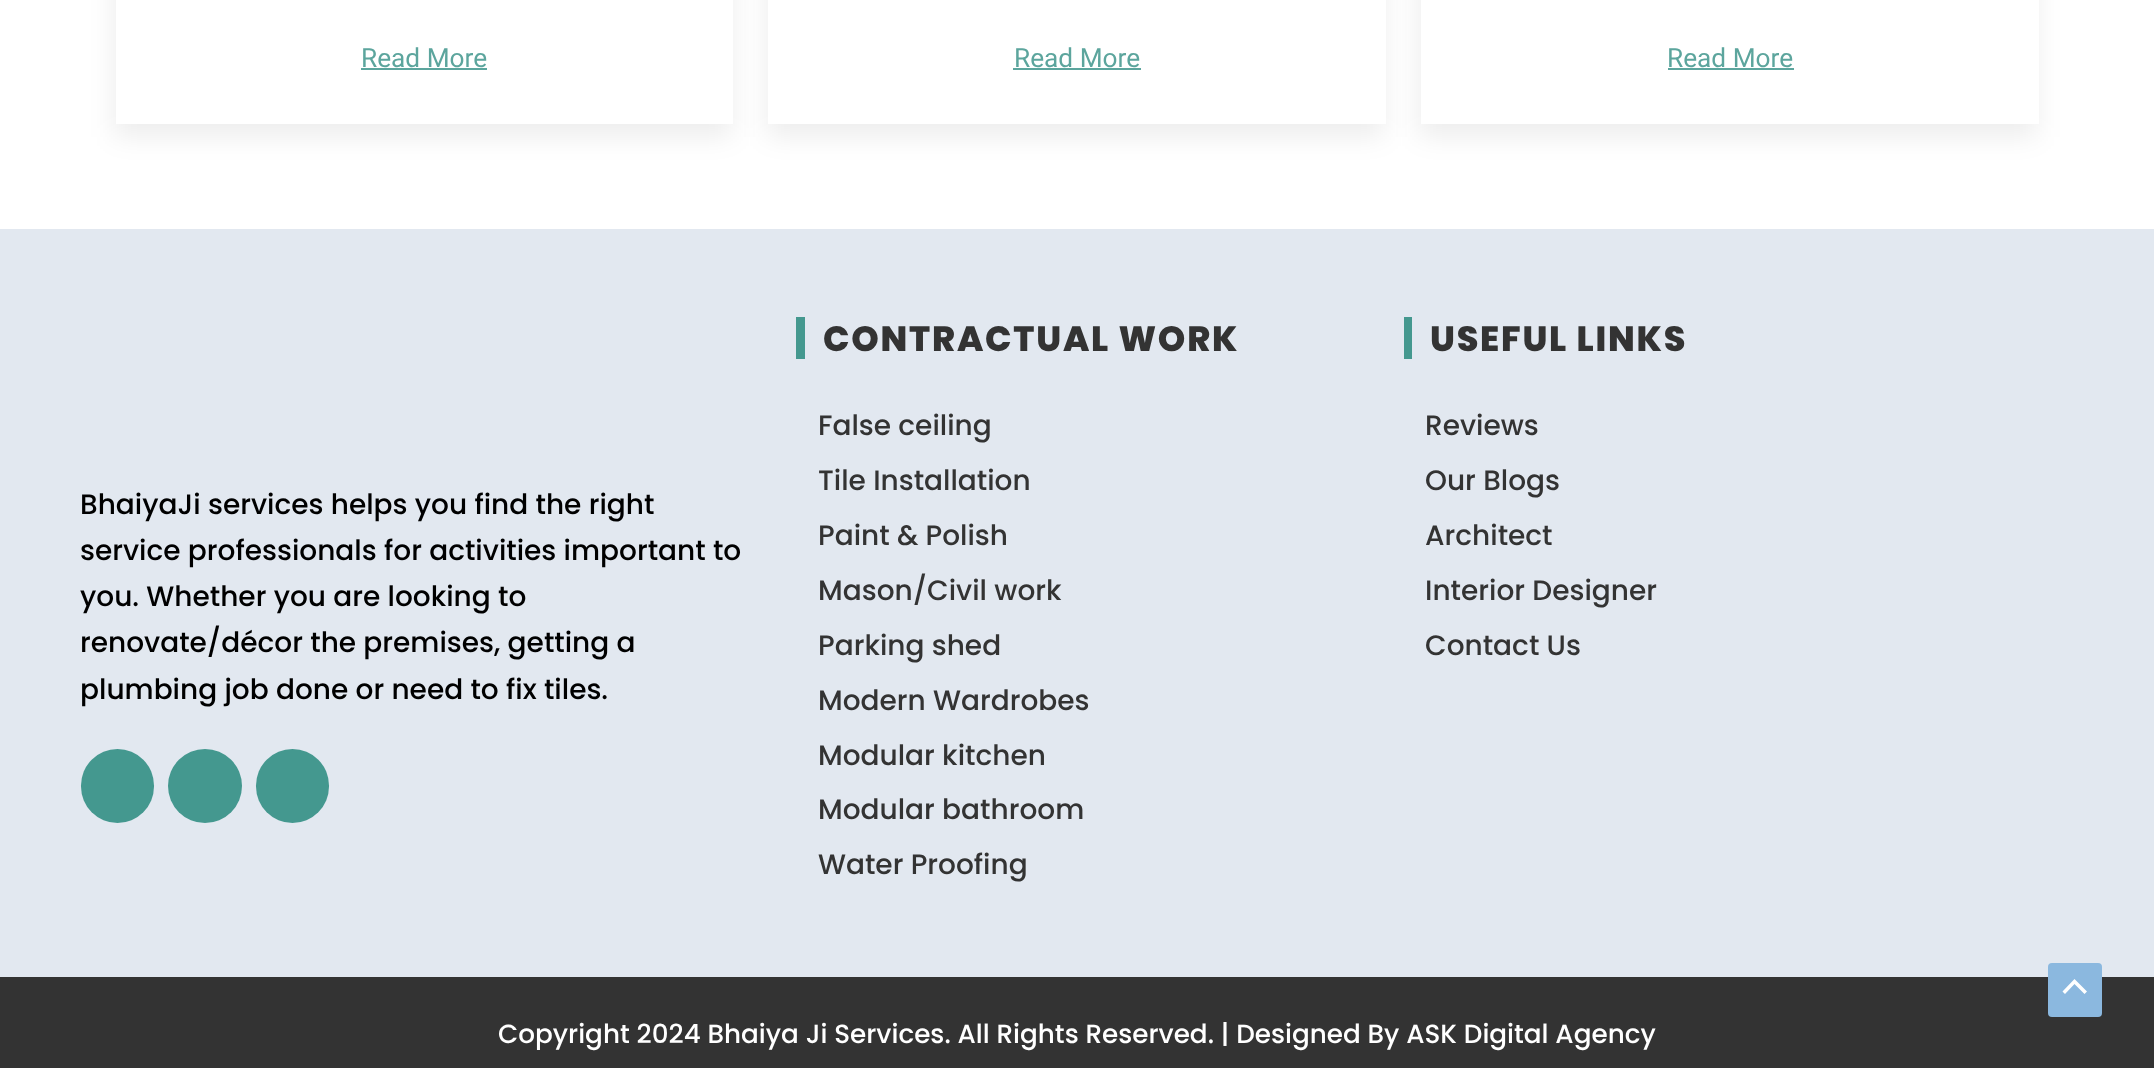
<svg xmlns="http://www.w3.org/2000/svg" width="2154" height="1068">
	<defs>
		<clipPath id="clip1"><path d="M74 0H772V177H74ZM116-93H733V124H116Z" clip-rule="evenodd" /></clipPath>
	</defs>
	<rect width="100%" height="100%" fill="#FFFFFF" />
	<g clip-path="url(#clip1)">
		<rect x="114" y="-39" width="618" height="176" fill="#000000" fill-opacity="0.07" filter="blur(13px)" />
	</g>
	<text x="361" y="67" font-family="Roboto" font-size="26.25" fill="#5CA59D">Read More</text>
	<rect x="361" y="68" width="126" height="2" fill="#5CA59D" />
	<rect x="767" y="-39" width="617" height="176" fill="#000000" fill-opacity="0.07" filter="blur(13px)" />
	<rect x="768" y="0" width="618" height="124" fill="#FFFFFF" />
	<text x="1014" y="67" font-family="Roboto" font-size="26.25" fill="#5CA59D">Read More</text>
	<rect x="1013" y="68" width="128" height="2" fill="#5CA59D" />
	<rect x="1419" y="-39" width="618" height="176" fill="#000000" fill-opacity="0.07" filter="blur(13px)" />
	<rect x="1421" y="0" width="618" height="124" fill="#FFFFFF" />
	<text x="1667" y="67" font-family="Roboto" font-size="26.25" fill="#5CA59D">Read More</text>
	<rect x="1668" y="68" width="126" height="2" fill="#5CA59D" />
	<rect x="0" y="229" width="2154" height="748" fill="#E2E8F0" />
	<g font-family="Poppins" font-size="28" font-weight="500" fill="#000000">
		<text x="80" y="514">BhaiyaJi services helps you find the right</text>
		<text x="80" y="560">service professionals for activities important to</text>
		<text x="80" y="606">you. Whether you are looking to</text>
		<text x="80" y="652">renovate/décor the premises, getting a</text>
		<text x="80" y="699">plumbing job done or need to fix tiles.</text>
	</g>
	<rect x="81" y="749" width="73" height="74" rx="36.5" fill="#44988F" />
	<circle cx="205" cy="786" r="37" fill="#44988F" />
	<rect x="256" y="749" width="73" height="74" rx="36.5" fill="#44988F" />
	<rect x="796" y="317" width="9" height="42" fill="#44988F" />
	<text x="823" y="351" font-family="Poppins" font-size="35" font-weight="800" letter-spacing="1.75" fill="#333333">CONTRACTUAL WORK</text>
	<g font-family="Poppins" font-size="28" font-weight="500" fill="#333333">
		<text x="818" y="435">False ceiling</text>
		<text x="818" y="490">Tile Installation</text>
		<text x="818" y="545">Paint &amp; Polish</text>
		<text x="818" y="600">Mason/Civil work</text>
		<text x="818" y="655">Parking shed</text>
		<text x="818" y="710">Modern Wardrobes</text>
		<text x="818" y="765">Modular kitchen</text>
		<text x="818" y="819">Modular bathroom</text>
		<text x="818" y="874">Water Proofing</text>
	</g>
	<rect x="1404" y="317" width="8" height="42" fill="#44988F" />
	<text x="1430" y="351" font-family="Poppins" font-size="35" font-weight="800" letter-spacing="1.75" fill="#333333">USEFUL LINKS</text>
	<g font-family="Poppins" font-size="28" font-weight="500" fill="#333333">
		<text x="1425" y="435">Reviews</text>
		<text x="1425" y="490">Our Blogs</text>
		<text x="1425" y="545">Architect</text>
		<text x="1425" y="600">Interior Designer</text>
		<text x="1425" y="655">Contact Us</text>
	</g>
	<rect x="0" y="977" width="2154" height="91" fill="#333333" />
	<text x="498" y="1043" font-family="Poppins" font-size="26.25" font-weight="500" fill="#FFFFFF">Copyright 2024 Bhaiya Ji Services. All Rights Reserved. | Designed By ASK Digital Agency</text>
	<rect x="2048" y="963" width="54" height="54" rx="4" fill="#8BB8DF" />
	<path d="M2087 991.5L2074.5 979L2062.5 991.5L2065 994L2074.5 984L2084.5 994Z" fill="#FFFFFF" />
</svg>
